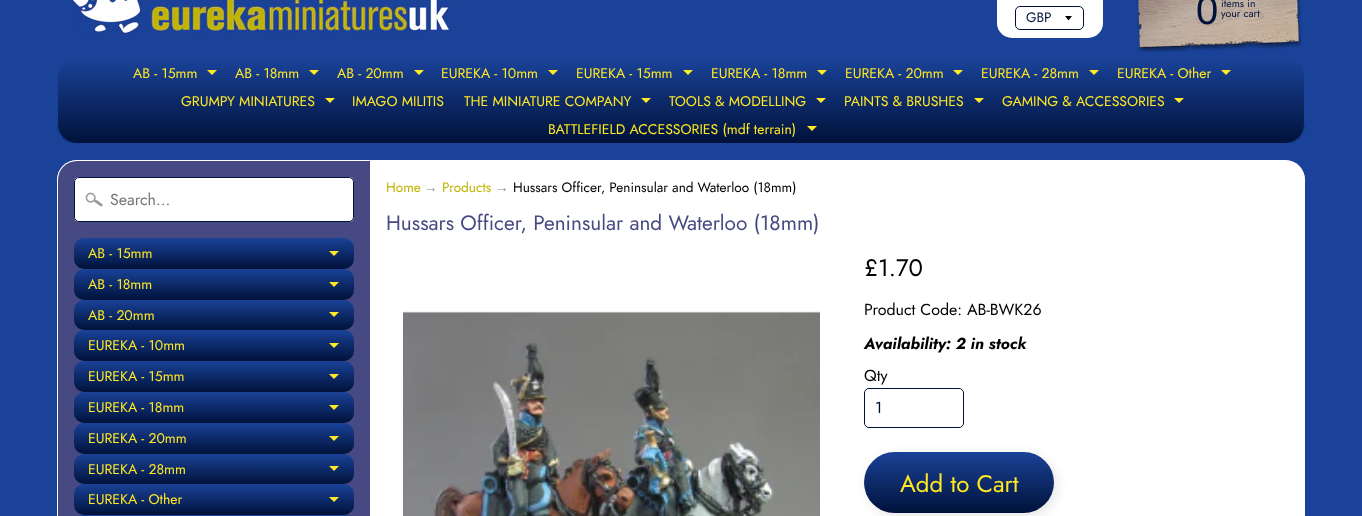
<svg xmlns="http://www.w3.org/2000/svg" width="1362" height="516">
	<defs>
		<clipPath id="clip1"><rect x="57" y="58" width="1248" height="86" rx="20" /></clipPath>
		<linearGradient id="g1" gradientUnits="userSpaceOnUse" x1="681" y1="59" x2="681" y2="143"><stop offset="0" stop-color="#1A4298" /><stop offset="1" stop-color="#00123A" /></linearGradient>
		<linearGradient id="g2" gradientUnits="userSpaceOnUse" x1="214" y1="238" x2="214" y2="269"><stop offset="0" stop-color="#1A4298" /><stop offset="1" stop-color="#00123A" /></linearGradient>
		<linearGradient id="g3" gradientUnits="userSpaceOnUse" x1="214" y1="269" x2="214" y2="300"><stop offset="0" stop-color="#1A4298" /><stop offset="1" stop-color="#00123A" /></linearGradient>
		<linearGradient id="g4" gradientUnits="userSpaceOnUse" x1="214" y1="300" x2="214" y2="330"><stop offset="0" stop-color="#1A4298" /><stop offset="1" stop-color="#00123A" /></linearGradient>
		<linearGradient id="g5" gradientUnits="userSpaceOnUse" x1="214" y1="330" x2="214" y2="361"><stop offset="0" stop-color="#1A4298" /><stop offset="1" stop-color="#00123A" /></linearGradient>
		<linearGradient id="g6" gradientUnits="userSpaceOnUse" x1="214" y1="361" x2="214" y2="392"><stop offset="0" stop-color="#1A4298" /><stop offset="1" stop-color="#00123A" /></linearGradient>
		<linearGradient id="g7" gradientUnits="userSpaceOnUse" x1="214" y1="392" x2="214" y2="423"><stop offset="0" stop-color="#1A4298" /><stop offset="1" stop-color="#00123A" /></linearGradient>
		<linearGradient id="g8" gradientUnits="userSpaceOnUse" x1="214" y1="423" x2="214" y2="454"><stop offset="0" stop-color="#1A4298" /><stop offset="1" stop-color="#00123A" /></linearGradient>
		<linearGradient id="g9" gradientUnits="userSpaceOnUse" x1="214" y1="454" x2="214" y2="484"><stop offset="0" stop-color="#1A4298" /><stop offset="1" stop-color="#00123A" /></linearGradient>
		<linearGradient id="g10" gradientUnits="userSpaceOnUse" x1="214" y1="484" x2="214" y2="515"><stop offset="0" stop-color="#1A4298" /><stop offset="1" stop-color="#00123A" /></linearGradient>
		<linearGradient id="g11" gradientUnits="userSpaceOnUse" x1="214" y1="515" x2="214" y2="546"><stop offset="0" stop-color="#1A4298" /><stop offset="1" stop-color="#00123A" /></linearGradient>
		<linearGradient id="g12" gradientUnits="userSpaceOnUse" x1="959" y1="452" x2="959" y2="513"><stop offset="0" stop-color="#1A4298" /><stop offset="1" stop-color="#00123A" /></linearGradient>
	</defs>
	<rect width="100%" height="100%" fill="#1A4298" />
	<image x="71" y="0" width="379" height="40" href="assets/img1.png" />
	<image x="1136" y="0" width="166" height="52" href="assets/img2.png" />
	<text x="1196" y="24" font-family="Liberation Sans" font-size="40" fill="#00123A">0</text>
	<g font-family="Jost" font-size="10.5" fill="#00123A">
		<text x="1221" y="7">items in</text>
		<text x="1221" y="17">your cart</text>
	</g>
	<g clip-path="url(#clip1)">
		<rect x="57" y="59" width="1248" height="84" fill="url(#g1)" />
	</g>
	<rect x="57.5" y="58.5" width="1247" height="85" rx="19.5" fill="none" stroke="#1A4298" />
	<text x="133" y="78" font-family="Jost" font-size="14" fill="#FFE824">AB - 15mm</text>
	<path d="M207 70H217L212 75Z" fill="#FFE824" />
	<text x="235" y="78" font-family="Jost" font-size="14" fill="#FFE824">AB - 18mm</text>
	<path d="M309 70H319L314 75Z" fill="#FFE824" />
	<text x="337" y="78" font-family="Jost" font-size="14" fill="#FFE824">AB - 20mm</text>
	<path d="M414 70H424L419 75Z" fill="#FFE824" />
	<text x="441" y="78" font-family="Jost" font-size="14" fill="#FFE824">EUREKA - 10mm</text>
	<path d="M548 70H558L553 75Z" fill="#FFE824" />
	<text x="576" y="78" font-family="Jost" font-size="14" fill="#FFE824">EUREKA - 15mm</text>
	<path d="M683 70H693L688 75Z" fill="#FFE824" />
	<text x="711" y="78" font-family="Jost" font-size="14" fill="#FFE824">EUREKA - 18mm</text>
	<path d="M817 70H827L822 75Z" fill="#FFE824" />
	<text x="845" y="78" font-family="Jost" font-size="14" fill="#FFE824">EUREKA - 20mm</text>
	<path d="M953 70H963L958 75Z" fill="#FFE824" />
	<text x="981" y="78" font-family="Jost" font-size="14" fill="#FFE824">EUREKA - 28mm</text>
	<path d="M1089 70H1099L1094 75Z" fill="#FFE824" />
	<text x="1117" y="78" font-family="Jost" font-size="14" fill="#FFE824">EUREKA - Other</text>
	<path d="M1221 70H1231L1226 75Z" fill="#FFE824" />
	<text x="181" y="106" font-family="Jost" font-size="14" fill="#FFE824">GRUMPY MINIATURES</text>
	<path d="M325 98H335L330 103Z" fill="#FFE824" />
	<g font-family="Jost" font-size="14" fill="#FFE824">
		<text x="352" y="106">IMAGO MILITIS</text>
		<text x="464" y="106">THE MINIATURE COMPANY</text>
	</g>
	<path d="M641 98H651L646 103Z" fill="#FFE824" />
	<text x="669" y="106" font-family="Jost" font-size="14" fill="#FFE824">TOOLS &amp; MODELLING</text>
	<path d="M816 98H826L821 103Z" fill="#FFE824" />
	<text x="844" y="106" font-family="Jost" font-size="14" fill="#FFE824">PAINTS &amp; BRUSHES</text>
	<path d="M974 98H984L979 103Z" fill="#FFE824" />
	<text x="1002" y="106" font-family="Jost" font-size="14" fill="#FFE824">GAMING &amp; ACCESSORIES</text>
	<path d="M1174 98H1184L1179 103Z" fill="#FFE824" />
	<text x="548" y="134" font-family="Jost" font-size="14" fill="#FFE824">BATTLEFIELD ACCESSORIES (mdf terrain)</text>
	<path d="M807 126H817L812 131Z" fill="#FFE824" />
	<rect x="997" y="-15" width="106" height="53" rx="15" fill="#FFFFFF" />
	<path d="M1065 16C1069.5 21.5 1067.5 21.5 1072 16Z" fill="#000000" />
	<rect x="1015.5" y="6.5" width="68" height="23" rx="4.5" fill="none" stroke="#00123A" />
	<text x="1026" y="22" font-family="Jost" font-size="13.6" fill="#00123A">GBP</text>
	<rect x="57" y="160" width="1248" height="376" rx="20" fill="#FFFFFF" />
	<rect x="57.5" y="160.5" width="1247" height="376" rx="19.5" fill="none" stroke="#FFFFFF" stroke-opacity="0.7" />
	<path d="M77 161H370V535H77C66.5 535 58 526.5 58 516V180C58 169.5 66.5 161 77 161Z" fill="#474982" />
	<rect x="74" y="177" width="280" height="45" rx="5" fill="#FFFFFF" />
	<image x="85" y="192" width="18" height="15" href="assets/img3.png" />
	<rect x="74.5" y="177.5" width="279" height="44" rx="4.5" fill="none" stroke="#00123A" />
	<text x="110" y="205" font-family="Jost" font-size="16" fill="#757575">Search...</text>
	<rect x="74" y="238" width="280" height="31" rx="10" fill="url(#g2)" />
	<text x="88" y="258" font-family="Jost" font-size="14" fill="#FFE824">AB - 15mm</text>
	<path d="M329 251H339L334 256Z" fill="#FFE824" />
	<rect x="74" y="269" width="280" height="31" rx="10" fill="url(#g3)" />
	<text x="88" y="289" font-family="Jost" font-size="14" fill="#FFE824">AB - 18mm</text>
	<path d="M329 282H339L334 287Z" fill="#FFE824" />
	<rect x="74" y="300" width="280" height="30" rx="10" fill="url(#g4)" />
	<text x="88" y="320" font-family="Jost" font-size="14" fill="#FFE824">AB - 20mm</text>
	<path d="M329 312H339L334 317Z" fill="#FFE824" />
	<rect x="74" y="330" width="280" height="31" rx="10" fill="url(#g5)" />
	<text x="88" y="350" font-family="Jost" font-size="14" fill="#FFE824">EUREKA - 10mm</text>
	<path d="M329 343H339L334 348Z" fill="#FFE824" />
	<rect x="74" y="361" width="280" height="31" rx="10" fill="url(#g6)" />
	<text x="88" y="381" font-family="Jost" font-size="14" fill="#FFE824">EUREKA - 15mm</text>
	<path d="M329 374H339L334 379Z" fill="#FFE824" />
	<rect x="74" y="392" width="280" height="31" rx="10" fill="url(#g7)" />
	<text x="88" y="412" font-family="Jost" font-size="14" fill="#FFE824">EUREKA - 18mm</text>
	<path d="M329 405H339L334 410Z" fill="#FFE824" />
	<rect x="74" y="423" width="280" height="31" rx="10" fill="url(#g8)" />
	<text x="88" y="443" font-family="Jost" font-size="14" fill="#FFE824">EUREKA - 20mm</text>
	<path d="M329 436H339L334 441Z" fill="#FFE824" />
	<rect x="74" y="454" width="280" height="30" rx="10" fill="url(#g9)" />
	<text x="88" y="474" font-family="Jost" font-size="14" fill="#FFE824">EUREKA - 28mm</text>
	<path d="M329 466H339L334 471Z" fill="#FFE824" />
	<rect x="74" y="484" width="280" height="31" rx="10" fill="url(#g10)" />
	<text x="88" y="504" font-family="Jost" font-size="14" fill="#FFE824">EUREKA - Other</text>
	<path d="M329 497H339L334 502Z" fill="#FFE824" />
	<rect x="74" y="515" width="280" height="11" rx="10" fill="url(#g11)" />
	<text x="386" y="192" font-family="Jost" font-size="13.6" fill="#C1B400">Home</text>
	<text x="424" y="192" font-family="Liberation Sans" font-size="13.6" fill="#808080">→</text>
	<text x="442" y="192" font-family="Jost" font-size="13.6" fill="#C1B400">Products</text>
	<text x="495" y="192" font-family="Liberation Sans" font-size="13.6" fill="#808080">→</text>
	<text x="513" y="192" font-family="Jost" font-size="13.6" fill="#000000">Hussars Officer, Peninsular and Waterloo (18mm)</text>
	<text x="386" y="230" font-family="Jost" font-size="20.8" fill="#474982">Hussars Officer, Peninsular and Waterloo (18mm)</text>
	<image x="403" y="311" width="417" height="205" href="assets/img4.png" />
	<text x="864" y="276" font-family="Jost" font-size="24" fill="#000000">£1.70</text>
	<text x="864" y="315" font-family="Jost" font-size="16" fill="#000000">Product Code: AB-BWK26</text>
	<text x="864" y="349" font-family="Jost" font-size="16" font-weight="700" font-style="italic" fill="#000000">Availability: 2 in stock</text>
	<text x="864" y="381" font-family="Jost" font-size="16" fill="#000000">Qty</text>
	<rect x="864.5" y="388.5" width="99" height="39" rx="4.5" fill="none" stroke="#00123A" />
	<text x="875" y="413" font-family="Jost" font-size="16" fill="#00123A">1</text>
	<rect x="867" y="455" width="190" height="61" rx="30.5" fill="#000000" fill-opacity="0.1" filter="blur(6px)" />
	<rect x="864" y="452" width="190" height="61" rx="30.5" fill="url(#g12)" />
	<text x="900" y="492" font-family="Jost" font-size="24" fill="#FFE824">Add to Cart</text>
</svg>
